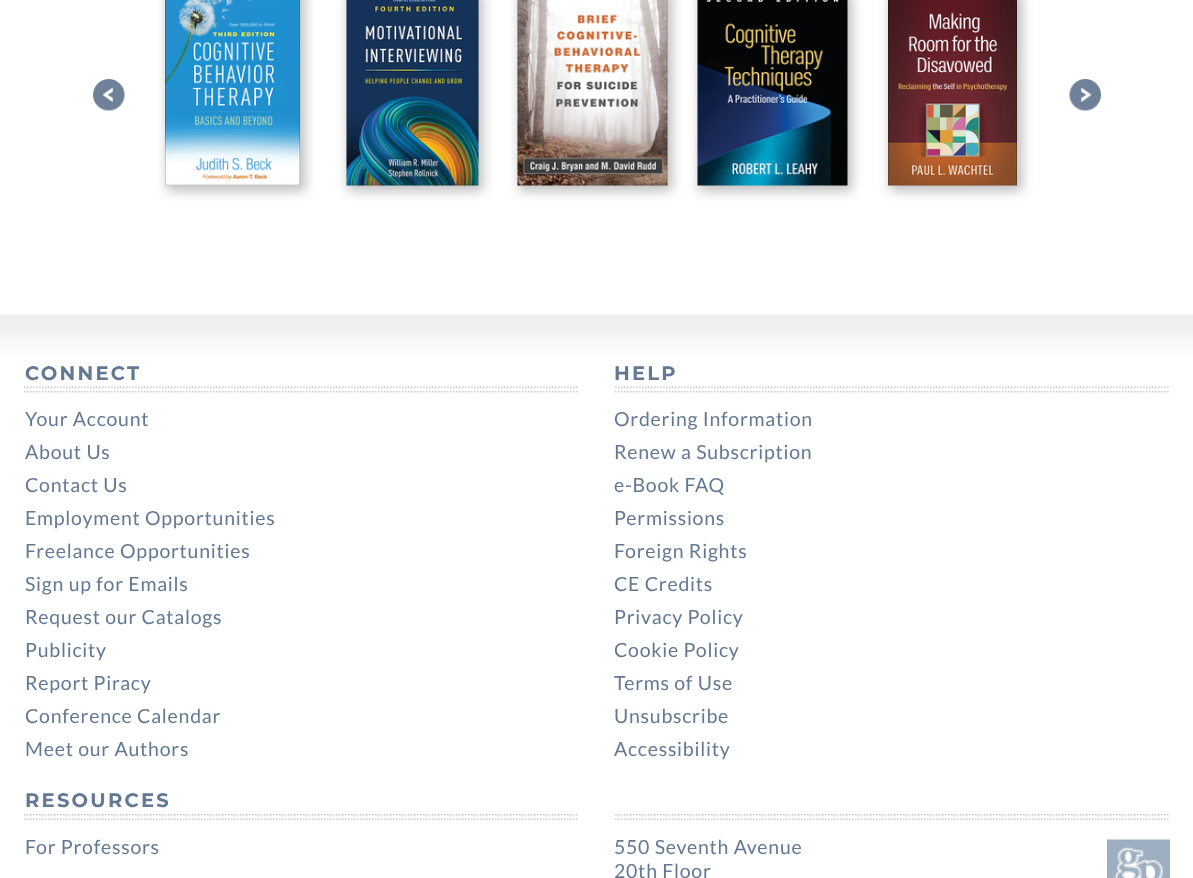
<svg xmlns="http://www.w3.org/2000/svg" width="1193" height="878">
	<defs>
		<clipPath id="clip1"><rect x="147" y="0" width="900" height="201" /></clipPath>
	</defs>
	<rect width="100%" height="100%" fill="#FFFFFF" />
	<image x="93" y="79" width="32" height="32" href="assets/img1.png" />
	<g clip-path="url(#clip1)">
		<rect x="167" y="-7" width="138" height="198" fill="#A8A8A8" fill-opacity="0.75" filter="blur(6px)" />
	</g>
	<image x="165" y="0" width="135" height="186" href="assets/img2.png" />
	<g clip-path="url(#clip1)">
		<rect x="348" y="-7" width="135" height="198" fill="#A8A8A8" fill-opacity="0.75" filter="blur(6px)" />
	</g>
	<image x="346" y="0" width="133" height="186" href="assets/img3.png" />
	<g clip-path="url(#clip1)">
		<rect x="519" y="-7" width="153" height="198" fill="#A8A8A8" fill-opacity="0.75" filter="blur(6px)" />
	</g>
	<image x="517" y="0" width="151" height="186" href="assets/img4.png" />
	<g clip-path="url(#clip1)">
		<rect x="699" y="-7" width="153" height="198" fill="#A8A8A8" fill-opacity="0.75" filter="blur(6px)" />
	</g>
	<image x="697" y="0" width="151" height="186" href="assets/img5.png" />
	<g clip-path="url(#clip1)">
		<rect x="890" y="-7" width="132" height="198" fill="#A8A8A8" fill-opacity="0.75" filter="blur(6px)" />
	</g>
	<image x="888" y="0" width="129" height="186" href="assets/img6.png" />
	<image x="1069" y="79" width="32" height="32" href="assets/img7.png" />
	<image x="0" y="314" width="1193" height="39" href="assets/img8.png" />
	<image x="24" y="386" width="554" height="7" href="assets/img9.png" />
	<text x="25" y="380" font-family="Montserrat" font-size="19.5" font-weight="700" letter-spacing="2.25" fill="#627893">CONNECT</text>
	<g font-family="Lato" font-size="19.5" letter-spacing="0.75" fill="#627893">
		<text x="25" y="426">Your Account</text>
		<text x="25" y="459">About Us</text>
		<text x="25" y="492">Contact Us</text>
		<text x="25" y="525">Employment Opportunities</text>
		<text x="25" y="558">Freelance Opportunities</text>
		<text x="25" y="591">Sign up for Emails</text>
		<text x="25" y="624">Request our Catalogs</text>
		<text x="25" y="657">Publicity</text>
		<text x="25" y="690">Report Piracy</text>
		<text x="25" y="723">Conference Calendar</text>
		<text x="25" y="756">Meet our Authors</text>
	</g>
	<image x="615" y="386" width="554" height="7" href="assets/img9.png" />
	<text x="614" y="380" font-family="Montserrat" font-size="19.5" font-weight="700" letter-spacing="2.25" fill="#627893">HELP</text>
	<g font-family="Lato" font-size="19.5" letter-spacing="0.75" fill="#627893">
		<text x="614" y="426">Ordering Information</text>
		<text x="614" y="459">Renew a Subscription</text>
		<text x="614" y="492">e-Book FAQ</text>
		<text x="614" y="525">Permissions</text>
		<text x="614" y="558">Foreign Rights</text>
		<text x="614" y="591">CE Credits</text>
		<text x="614" y="624">Privacy Policy</text>
		<text x="614" y="657">Cookie Policy</text>
		<text x="614" y="690">Terms of Use</text>
		<text x="614" y="723">Unsubscribe</text>
		<text x="614" y="756">Accessibility</text>
	</g>
	<image x="24" y="814" width="554" height="6" href="assets/img10.png" />
	<text x="25" y="807" font-family="Montserrat" font-size="19.5" font-weight="700" letter-spacing="2.25" fill="#627893">RESOURCES</text>
	<text x="25" y="854" font-family="Lato" font-size="19.5" letter-spacing="0.75" fill="#627893">For Professors</text>
	<image x="615" y="814" width="554" height="6" href="assets/img11.png" />
	<image x="1107" y="839" width="63" height="39" href="assets/img12.png" />
	<g font-family="Lato" font-size="19.5" letter-spacing="0.75" fill="#627893">
		<text x="614" y="854">550 Seventh Avenue</text>
		<text x="614" y="878">20th Floor</text>
	</g>
</svg>
